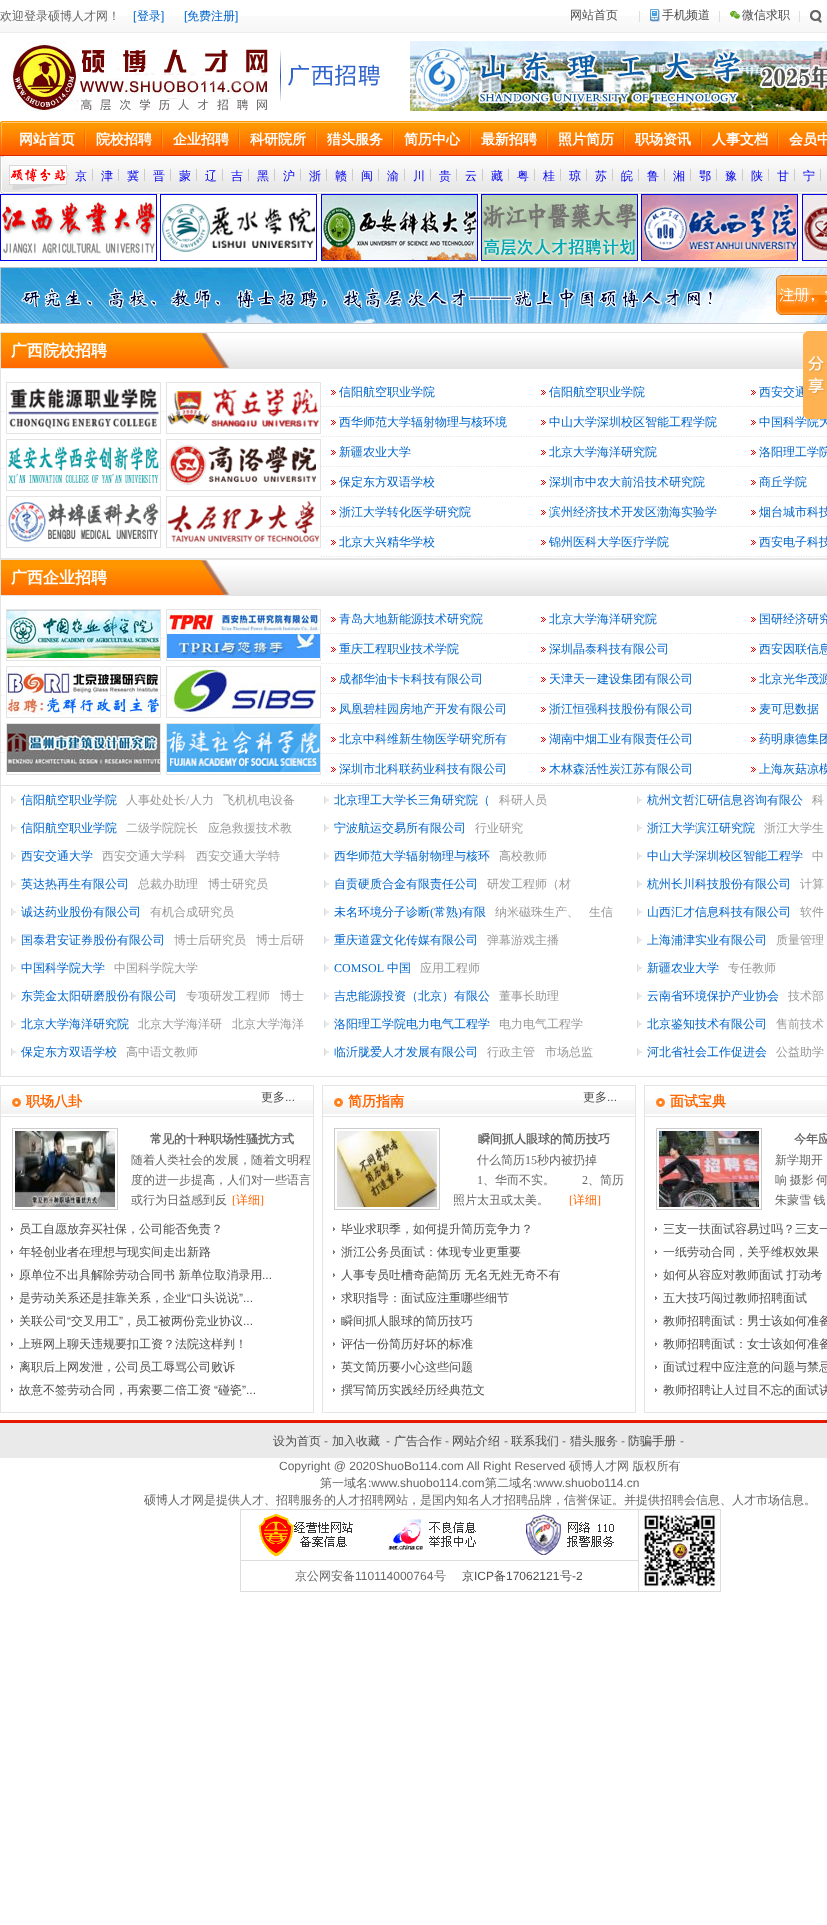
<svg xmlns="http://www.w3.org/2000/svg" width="827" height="1925">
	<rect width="100%" height="100%" fill="#FFFFFF" />
	<image x="0" y="16" width="827" height="17" href="assets/img1.png" />
	<text x="0" y="20" font-family="WenQuanYi Zen Hei" font-size="12" font-weight="500" fill="#666666">欢迎登录硕博人才网！</text>
	<text x="133" y="20" font-family="Liberation Sans" font-size="12" fill="#0066CC">[</text>
	<text x="137" y="20" font-family="WenQuanYi Zen Hei" font-size="12" font-weight="500" fill="#0066CC">登录</text>
	<g font-family="Liberation Sans" font-size="12" fill="#0066CC">
		<text x="161" y="20">]</text>
		<text x="184" y="20">[</text>
	</g>
	<text x="187" y="20" font-family="WenQuanYi Zen Hei" font-size="12" font-weight="500" fill="#0066CC">免费注册</text>
	<text x="235" y="20" font-family="Liberation Sans" font-size="12" fill="#0066CC">]</text>
	<rect x="639" y="11" width="1" height="11" fill="#DDDDDD" />
	<text x="570" y="19" font-family="WenQuanYi Zen Hei" font-size="12" font-weight="500" fill="#4D4D4D">网站首页</text>
	<rect x="719" y="11" width="1" height="11" fill="#DDDDDD" />
	<image x="650" y="9" width="10" height="13" href="assets/img2.png" />
	<text x="662" y="19" font-family="WenQuanYi Zen Hei" font-size="12" font-weight="500" fill="#4D4D4D">手机频道</text>
	<rect x="799" y="11" width="1" height="11" fill="#DDDDDD" />
	<image x="730" y="11" width="11" height="9" href="assets/img3.png" />
	<text x="742" y="19" font-family="WenQuanYi Zen Hei" font-size="12" font-weight="500" fill="#4D4D4D">微信求职</text>
	<image x="810" y="10" width="12" height="13" href="assets/img4.png" />
	<image x="10" y="41" width="261" height="70" href="assets/img5.png" />
	<image x="280" y="50" width="100" height="52" href="assets/img6.png" />
	<image x="410" y="41" width="417" height="70" href="assets/img7.png" />
	<image x="0" y="121" width="4" height="73" href="assets/img8.png" />
	<image x="4" y="121" width="823" height="73" href="assets/img9.png" />
	<text x="19" y="144" font-family="WenQuanYi Zen Hei" font-size="14" font-weight="700" fill="#FFFFFF">网站首页</text>
	<image x="84" y="122" width="2" height="31" href="assets/img10.png" />
	<text x="96" y="144" font-family="WenQuanYi Zen Hei" font-size="14" font-weight="700" fill="#FFFFFF">院校招聘</text>
	<image x="161" y="122" width="2" height="31" href="assets/img10.png" />
	<text x="173" y="144" font-family="WenQuanYi Zen Hei" font-size="14" font-weight="700" fill="#FFFFFF">企业招聘</text>
	<image x="238" y="122" width="2" height="31" href="assets/img10.png" />
	<text x="250" y="144" font-family="WenQuanYi Zen Hei" font-size="14" font-weight="700" fill="#FFFFFF">科研院所</text>
	<image x="315" y="122" width="2" height="31" href="assets/img10.png" />
	<text x="327" y="144" font-family="WenQuanYi Zen Hei" font-size="14" font-weight="700" fill="#FFFFFF">猎头服务</text>
	<image x="392" y="122" width="2" height="31" href="assets/img10.png" />
	<text x="404" y="144" font-family="WenQuanYi Zen Hei" font-size="14" font-weight="700" fill="#FFFFFF">简历中心</text>
	<image x="469" y="122" width="2" height="31" href="assets/img10.png" />
	<text x="481" y="144" font-family="WenQuanYi Zen Hei" font-size="14" font-weight="700" fill="#FFFFFF">最新招聘</text>
	<image x="546" y="122" width="2" height="31" href="assets/img10.png" />
	<text x="558" y="144" font-family="WenQuanYi Zen Hei" font-size="14" font-weight="700" fill="#FFFFFF">照片简历</text>
	<image x="623" y="122" width="2" height="31" href="assets/img10.png" />
	<text x="635" y="144" font-family="WenQuanYi Zen Hei" font-size="14" font-weight="700" fill="#FFFFFF">职场资讯</text>
	<image x="700" y="122" width="2" height="31" href="assets/img10.png" />
	<text x="712" y="144" font-family="WenQuanYi Zen Hei" font-size="14" font-weight="700" fill="#FFFFFF">人事文档</text>
	<image x="777" y="122" width="2" height="31" href="assets/img10.png" />
	<text x="789" y="144" font-family="WenQuanYi Zen Hei" font-size="14" font-weight="700" fill="#FFFFFF">会员中</text>
	<image x="9" y="165" width="60" height="25" href="assets/img11.png" />
	<text x="75" y="180" font-family="WenQuanYi Zen Hei" font-size="12" font-weight="500" fill="#0000EE">京</text>
	<rect x="92" y="169" width="1" height="12" fill="#CCCCCC" />
	<text x="101" y="180" font-family="WenQuanYi Zen Hei" font-size="12" font-weight="500" fill="#0000EE">津</text>
	<rect x="118" y="169" width="1" height="12" fill="#CCCCCC" />
	<text x="127" y="180" font-family="WenQuanYi Zen Hei" font-size="12" font-weight="500" fill="#0000EE">冀</text>
	<rect x="144" y="169" width="1" height="12" fill="#CCCCCC" />
	<text x="153" y="180" font-family="WenQuanYi Zen Hei" font-size="12" font-weight="500" fill="#0000EE">晋</text>
	<rect x="170" y="169" width="1" height="12" fill="#CCCCCC" />
	<text x="179" y="180" font-family="WenQuanYi Zen Hei" font-size="12" font-weight="500" fill="#0000EE">蒙</text>
	<rect x="196" y="169" width="1" height="12" fill="#CCCCCC" />
	<text x="205" y="180" font-family="WenQuanYi Zen Hei" font-size="12" font-weight="500" fill="#0000EE">辽</text>
	<rect x="222" y="169" width="1" height="12" fill="#CCCCCC" />
	<text x="231" y="180" font-family="WenQuanYi Zen Hei" font-size="12" font-weight="500" fill="#0000EE">吉</text>
	<rect x="248" y="169" width="1" height="12" fill="#CCCCCC" />
	<text x="257" y="180" font-family="WenQuanYi Zen Hei" font-size="12" font-weight="500" fill="#0000EE">黑</text>
	<rect x="274" y="169" width="1" height="12" fill="#CCCCCC" />
	<text x="283" y="180" font-family="WenQuanYi Zen Hei" font-size="12" font-weight="500" fill="#0000EE">沪</text>
	<rect x="300" y="169" width="1" height="12" fill="#CCCCCC" />
	<text x="309" y="180" font-family="WenQuanYi Zen Hei" font-size="12" font-weight="500" fill="#0000EE">浙</text>
	<rect x="326" y="169" width="1" height="12" fill="#CCCCCC" />
	<text x="335" y="180" font-family="WenQuanYi Zen Hei" font-size="12" font-weight="500" fill="#0000EE">赣</text>
	<rect x="352" y="169" width="1" height="12" fill="#CCCCCC" />
	<text x="361" y="180" font-family="WenQuanYi Zen Hei" font-size="12" font-weight="500" fill="#0000EE">闽</text>
	<rect x="378" y="169" width="1" height="12" fill="#CCCCCC" />
	<text x="387" y="180" font-family="WenQuanYi Zen Hei" font-size="12" font-weight="500" fill="#0000EE">渝</text>
	<rect x="404" y="169" width="1" height="12" fill="#CCCCCC" />
	<text x="413" y="180" font-family="WenQuanYi Zen Hei" font-size="12" font-weight="500" fill="#0000EE">川</text>
	<rect x="430" y="169" width="1" height="12" fill="#CCCCCC" />
	<text x="439" y="180" font-family="WenQuanYi Zen Hei" font-size="12" font-weight="500" fill="#0000EE">贵</text>
	<rect x="456" y="169" width="1" height="12" fill="#CCCCCC" />
	<text x="465" y="180" font-family="WenQuanYi Zen Hei" font-size="12" font-weight="500" fill="#0000EE">云</text>
	<rect x="482" y="169" width="1" height="12" fill="#CCCCCC" />
	<text x="491" y="180" font-family="WenQuanYi Zen Hei" font-size="12" font-weight="500" fill="#0000EE">藏</text>
	<rect x="508" y="169" width="1" height="12" fill="#CCCCCC" />
	<text x="517" y="180" font-family="WenQuanYi Zen Hei" font-size="12" font-weight="500" fill="#0000EE">粤</text>
	<rect x="534" y="169" width="1" height="12" fill="#CCCCCC" />
	<text x="543" y="180" font-family="WenQuanYi Zen Hei" font-size="12" font-weight="500" fill="#0000EE">桂</text>
	<rect x="560" y="169" width="1" height="12" fill="#CCCCCC" />
	<text x="569" y="180" font-family="WenQuanYi Zen Hei" font-size="12" font-weight="500" fill="#0000EE">琼</text>
	<rect x="586" y="169" width="1" height="12" fill="#CCCCCC" />
	<text x="595" y="180" font-family="WenQuanYi Zen Hei" font-size="12" font-weight="500" fill="#0000EE">苏</text>
	<rect x="612" y="169" width="1" height="12" fill="#CCCCCC" />
	<text x="621" y="180" font-family="WenQuanYi Zen Hei" font-size="12" font-weight="500" fill="#0000EE">皖</text>
	<rect x="638" y="169" width="1" height="12" fill="#CCCCCC" />
	<text x="647" y="180" font-family="WenQuanYi Zen Hei" font-size="12" font-weight="500" fill="#0000EE">鲁</text>
	<rect x="664" y="169" width="1" height="12" fill="#CCCCCC" />
	<text x="673" y="180" font-family="WenQuanYi Zen Hei" font-size="12" font-weight="500" fill="#0000EE">湘</text>
	<rect x="690" y="169" width="1" height="12" fill="#CCCCCC" />
	<text x="699" y="180" font-family="WenQuanYi Zen Hei" font-size="12" font-weight="500" fill="#0000EE">鄂</text>
	<rect x="716" y="169" width="1" height="12" fill="#CCCCCC" />
	<text x="725" y="180" font-family="WenQuanYi Zen Hei" font-size="12" font-weight="500" fill="#0000EE">豫</text>
	<rect x="742" y="169" width="1" height="12" fill="#CCCCCC" />
	<text x="751" y="180" font-family="WenQuanYi Zen Hei" font-size="12" font-weight="500" fill="#0000EE">陕</text>
	<rect x="768" y="169" width="1" height="12" fill="#CCCCCC" />
	<text x="777" y="180" font-family="WenQuanYi Zen Hei" font-size="12" font-weight="500" fill="#0000EE">甘</text>
	<rect x="794" y="169" width="1" height="12" fill="#CCCCCC" />
	<text x="803" y="180" font-family="WenQuanYi Zen Hei" font-size="12" font-weight="500" fill="#0000EE">宁</text>
	<rect x="820" y="169" width="1" height="12" fill="#CCCCCC" />
	<rect x="0.5" y="194.5" width="156" height="66" fill="none" stroke="#0000EE" />
	<rect x="160.5" y="194.5" width="156" height="66" fill="none" stroke="#0000EE" />
	<rect x="321.5" y="194.5" width="156" height="66" fill="none" stroke="#0000EE" />
	<rect x="481.5" y="194.5" width="156" height="66" fill="none" stroke="#0000EE" />
	<rect x="641.5" y="194.5" width="156" height="66" fill="none" stroke="#0000EE" />
	<rect x="802.5" y="194.5" width="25" height="66" fill="none" stroke="#0000EE" />
	<image x="1" y="201" width="155" height="53" href="assets/img12.png" />
	<image x="162" y="204" width="153" height="48" href="assets/img13.png" />
	<image x="322" y="195" width="155" height="65" href="assets/img14.png" />
	<image x="482" y="195" width="155" height="65" href="assets/img15.png" />
	<image x="642" y="195" width="155" height="65" href="assets/img16.png" />
	<image x="803" y="195" width="24" height="65" href="assets/img17.png" />
	<rect x="0.5" y="267.5" width="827" height="56" fill="none" stroke="#C0C4CD" />
	<image x="1" y="268" width="826" height="55" href="assets/img18.png" />
	<rect x="0.5" y="332.5" width="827" height="744" fill="none" stroke="#E4E4E4" />
	<rect x="0.5" y="332.5" width="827" height="226" fill="none" stroke="#E4E4E4" />
	<image x="1" y="333" width="803" height="35" href="assets/img20.png" />
	<g font-family="WenQuanYi Zen Hei" font-size="12" font-weight="500" fill="#0066CC">
		<text x="759" y="396">西安交通</text>
		<text x="759" y="426">中国科学院大</text>
	</g>
	<image x="803" y="331" width="24" height="88" href="assets/img19.png" />
	<rect x="1" y="368" width="802" height="1" fill="#E4E4E4" />
	<text x="11" y="356" font-family="WenQuanYi Zen Hei" font-size="16" font-weight="700" fill="#FFFFFF">广西院校招聘</text>
	<image x="1" y="411" width="5" height="1" href="assets/img21.png" />
	<rect x="6.5" y="382.5" width="154" height="51" fill="none" stroke="#E4E4E4" />
	<image x="8" y="388" width="151" height="41" href="assets/img22.png" />
	<image x="161" y="411" width="5" height="1" href="assets/img21.png" />
	<rect x="166.5" y="382.5" width="154" height="51" fill="none" stroke="#E4E4E4" />
	<image x="167" y="388" width="153" height="39" href="assets/img23.png" />
	<image x="1" y="468" width="5" height="1" href="assets/img21.png" />
	<rect x="6.5" y="439.5" width="154" height="51" fill="none" stroke="#E4E4E4" />
	<image x="7" y="446" width="152" height="38" href="assets/img24.png" />
	<image x="161" y="468" width="5" height="1" href="assets/img21.png" />
	<rect x="166.5" y="439.5" width="154" height="51" fill="none" stroke="#E4E4E4" />
	<image x="169" y="445" width="147" height="40" href="assets/img25.png" />
	<image x="1" y="525" width="5" height="1" href="assets/img21.png" />
	<rect x="6.5" y="496.5" width="154" height="51" fill="none" stroke="#E4E4E4" />
	<image x="8" y="502" width="151" height="40" href="assets/img26.png" />
	<image x="161" y="525" width="5" height="1" href="assets/img21.png" />
	<rect x="166.5" y="496.5" width="154" height="51" fill="none" stroke="#E4E4E4" />
	<image x="167" y="501" width="153" height="42" href="assets/img27.png" />
	<image x="321" y="406" width="209" height="1" href="assets/img28.png" />
	<image x="331" y="390" width="5" height="5" href="assets/img29.png" />
	<text x="339" y="396" font-family="WenQuanYi Zen Hei" font-size="12" font-weight="500" fill="#0066CC">信阳航空职业学院</text>
	<image x="531" y="406" width="209" height="1" href="assets/img28.png" />
	<image x="541" y="390" width="5" height="5" href="assets/img29.png" />
	<text x="549" y="396" font-family="WenQuanYi Zen Hei" font-size="12" font-weight="500" fill="#0066CC">信阳航空职业学院</text>
	<image x="741" y="406" width="62" height="1" href="assets/img30.png" />
	<image x="751" y="390" width="5" height="5" href="assets/img29.png" />
	<image x="321" y="436" width="209" height="1" href="assets/img28.png" />
	<image x="331" y="420" width="5" height="5" href="assets/img29.png" />
	<text x="339" y="426" font-family="WenQuanYi Zen Hei" font-size="12" font-weight="500" fill="#0066CC">西华师范大学辐射物理与核环境</text>
	<image x="531" y="436" width="209" height="1" href="assets/img28.png" />
	<image x="541" y="420" width="5" height="5" href="assets/img29.png" />
	<text x="549" y="426" font-family="WenQuanYi Zen Hei" font-size="12" font-weight="500" fill="#0066CC">中山大学深圳校区智能工程学院</text>
	<image x="741" y="436" width="86" height="1" href="assets/img31.png" />
	<image x="751" y="420" width="5" height="5" href="assets/img29.png" />
	<image x="321" y="466" width="209" height="1" href="assets/img28.png" />
	<image x="331" y="450" width="5" height="5" href="assets/img29.png" />
	<text x="339" y="456" font-family="WenQuanYi Zen Hei" font-size="12" font-weight="500" fill="#0066CC">新疆农业大学</text>
	<image x="531" y="466" width="209" height="1" href="assets/img28.png" />
	<image x="541" y="450" width="5" height="5" href="assets/img29.png" />
	<text x="549" y="456" font-family="WenQuanYi Zen Hei" font-size="12" font-weight="500" fill="#0066CC">北京大学海洋研究院</text>
	<image x="741" y="466" width="86" height="1" href="assets/img31.png" />
	<image x="751" y="450" width="5" height="5" href="assets/img29.png" />
	<text x="759" y="456" font-family="WenQuanYi Zen Hei" font-size="12" font-weight="500" fill="#0066CC">洛阳理工学院</text>
	<image x="321" y="496" width="209" height="1" href="assets/img28.png" />
	<image x="331" y="480" width="5" height="5" href="assets/img29.png" />
	<text x="339" y="486" font-family="WenQuanYi Zen Hei" font-size="12" font-weight="500" fill="#0066CC">保定东方双语学校</text>
	<image x="531" y="496" width="209" height="1" href="assets/img28.png" />
	<image x="541" y="480" width="5" height="5" href="assets/img29.png" />
	<text x="549" y="486" font-family="WenQuanYi Zen Hei" font-size="12" font-weight="500" fill="#0066CC">深圳市中农大前沿技术研究院</text>
	<image x="741" y="496" width="86" height="1" href="assets/img31.png" />
	<image x="751" y="480" width="5" height="5" href="assets/img29.png" />
	<text x="759" y="486" font-family="WenQuanYi Zen Hei" font-size="12" font-weight="500" fill="#0066CC">商丘学院</text>
	<image x="321" y="526" width="209" height="1" href="assets/img28.png" />
	<image x="331" y="510" width="5" height="5" href="assets/img29.png" />
	<text x="339" y="516" font-family="WenQuanYi Zen Hei" font-size="12" font-weight="500" fill="#0066CC">浙江大学转化医学研究院</text>
	<image x="531" y="526" width="209" height="1" href="assets/img28.png" />
	<image x="541" y="510" width="5" height="5" href="assets/img29.png" />
	<text x="549" y="516" font-family="WenQuanYi Zen Hei" font-size="12" font-weight="500" fill="#0066CC">滨州经济技术开发区渤海实验学</text>
	<image x="741" y="526" width="86" height="1" href="assets/img31.png" />
	<image x="751" y="510" width="5" height="5" href="assets/img29.png" />
	<text x="759" y="516" font-family="WenQuanYi Zen Hei" font-size="12" font-weight="500" fill="#0066CC">烟台城市科技</text>
	<image x="321" y="556" width="209" height="1" href="assets/img28.png" />
	<image x="331" y="540" width="5" height="5" href="assets/img29.png" />
	<text x="339" y="546" font-family="WenQuanYi Zen Hei" font-size="12" font-weight="500" fill="#0066CC">北京大兴精华学校</text>
	<image x="531" y="556" width="209" height="1" href="assets/img28.png" />
	<image x="541" y="540" width="5" height="5" href="assets/img29.png" />
	<text x="549" y="546" font-family="WenQuanYi Zen Hei" font-size="12" font-weight="500" fill="#0066CC">锦州医科大学医疗学院</text>
	<image x="741" y="556" width="86" height="1" href="assets/img31.png" />
	<image x="751" y="540" width="5" height="5" href="assets/img29.png" />
	<text x="759" y="546" font-family="WenQuanYi Zen Hei" font-size="12" font-weight="500" fill="#0066CC">西安电子科技</text>
	<rect x="0.5" y="559.5" width="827" height="226" fill="none" stroke="#E4E4E4" />
	<image x="1" y="560" width="826" height="35" href="assets/img32.png" />
	<rect x="1" y="595" width="826" height="1" fill="#E4E4E4" />
	<text x="11" y="583" font-family="WenQuanYi Zen Hei" font-size="16" font-weight="700" fill="#FFFFFF">广西企业招聘</text>
	<image x="1" y="638" width="5" height="1" href="assets/img21.png" />
	<rect x="6.5" y="609.5" width="154" height="51" fill="none" stroke="#E4E4E4" />
	<image x="7" y="610" width="153" height="48" href="assets/img33.png" />
	<image x="161" y="638" width="5" height="1" href="assets/img21.png" />
	<rect x="166.5" y="609.5" width="154" height="51" fill="none" stroke="#E4E4E4" />
	<image x="167" y="610" width="153" height="48" href="assets/img34.png" />
	<image x="1" y="695" width="5" height="1" href="assets/img21.png" />
	<rect x="6.5" y="666.5" width="154" height="51" fill="none" stroke="#E4E4E4" />
	<image x="7" y="667" width="152" height="48" href="assets/img35.png" />
	<image x="161" y="695" width="5" height="1" href="assets/img21.png" />
	<rect x="166.5" y="666.5" width="154" height="51" fill="none" stroke="#E4E4E4" />
	<image x="167" y="667" width="152" height="48" href="assets/img36.png" />
	<image x="1" y="752" width="5" height="1" href="assets/img21.png" />
	<rect x="6.5" y="723.5" width="154" height="51" fill="none" stroke="#E4E4E4" />
	<image x="7" y="724" width="153" height="48" href="assets/img37.png" />
	<image x="161" y="752" width="5" height="1" href="assets/img21.png" />
	<rect x="166.5" y="723.5" width="154" height="51" fill="none" stroke="#E4E4E4" />
	<image x="167" y="724" width="153" height="48" href="assets/img38.png" />
	<image x="321" y="633" width="209" height="1" href="assets/img28.png" />
	<image x="331" y="617" width="5" height="5" href="assets/img29.png" />
	<text x="339" y="623" font-family="WenQuanYi Zen Hei" font-size="12" font-weight="500" fill="#0066CC">青岛大地新能源技术研究院</text>
	<image x="531" y="633" width="209" height="1" href="assets/img28.png" />
	<image x="541" y="617" width="5" height="5" href="assets/img29.png" />
	<text x="549" y="623" font-family="WenQuanYi Zen Hei" font-size="12" font-weight="500" fill="#0066CC">北京大学海洋研究院</text>
	<image x="741" y="633" width="86" height="1" href="assets/img31.png" />
	<image x="751" y="617" width="5" height="5" href="assets/img29.png" />
	<text x="759" y="623" font-family="WenQuanYi Zen Hei" font-size="12" font-weight="500" fill="#0066CC">国研经济研究</text>
	<image x="321" y="663" width="209" height="1" href="assets/img28.png" />
	<image x="331" y="647" width="5" height="5" href="assets/img29.png" />
	<text x="339" y="653" font-family="WenQuanYi Zen Hei" font-size="12" font-weight="500" fill="#0066CC">重庆工程职业技术学院</text>
	<image x="531" y="663" width="209" height="1" href="assets/img28.png" />
	<image x="541" y="647" width="5" height="5" href="assets/img29.png" />
	<text x="549" y="653" font-family="WenQuanYi Zen Hei" font-size="12" font-weight="500" fill="#0066CC">深圳晶泰科技有限公司</text>
	<image x="741" y="663" width="86" height="1" href="assets/img31.png" />
	<image x="751" y="647" width="5" height="5" href="assets/img29.png" />
	<text x="759" y="653" font-family="WenQuanYi Zen Hei" font-size="12" font-weight="500" fill="#0066CC">西安因联信息</text>
	<image x="321" y="693" width="209" height="1" href="assets/img28.png" />
	<image x="331" y="677" width="5" height="5" href="assets/img29.png" />
	<text x="339" y="683" font-family="WenQuanYi Zen Hei" font-size="12" font-weight="500" fill="#0066CC">成都华油卡卡科技有限公司</text>
	<image x="531" y="693" width="209" height="1" href="assets/img28.png" />
	<image x="541" y="677" width="5" height="5" href="assets/img29.png" />
	<text x="549" y="683" font-family="WenQuanYi Zen Hei" font-size="12" font-weight="500" fill="#0066CC">天津天一建设集团有限公司</text>
	<image x="741" y="693" width="86" height="1" href="assets/img31.png" />
	<image x="751" y="677" width="5" height="5" href="assets/img29.png" />
	<text x="759" y="683" font-family="WenQuanYi Zen Hei" font-size="12" font-weight="500" fill="#0066CC">北京光华茂源</text>
	<image x="321" y="723" width="209" height="1" href="assets/img28.png" />
	<image x="331" y="707" width="5" height="5" href="assets/img29.png" />
	<text x="339" y="713" font-family="WenQuanYi Zen Hei" font-size="12" font-weight="500" fill="#0066CC">凤凰碧桂园房地产开发有限公司</text>
	<image x="531" y="723" width="209" height="1" href="assets/img28.png" />
	<image x="541" y="707" width="5" height="5" href="assets/img29.png" />
	<text x="549" y="713" font-family="WenQuanYi Zen Hei" font-size="12" font-weight="500" fill="#0066CC">浙江恒强科技股份有限公司</text>
	<image x="741" y="723" width="86" height="1" href="assets/img31.png" />
	<image x="751" y="707" width="5" height="5" href="assets/img29.png" />
	<text x="759" y="713" font-family="WenQuanYi Zen Hei" font-size="12" font-weight="500" fill="#0066CC">麦可思数据</text>
	<image x="321" y="753" width="209" height="1" href="assets/img28.png" />
	<image x="331" y="737" width="5" height="5" href="assets/img29.png" />
	<text x="339" y="743" font-family="WenQuanYi Zen Hei" font-size="12" font-weight="500" fill="#0066CC">北京中科维新生物医学研究所有</text>
	<image x="531" y="753" width="209" height="1" href="assets/img28.png" />
	<image x="541" y="737" width="5" height="5" href="assets/img29.png" />
	<text x="549" y="743" font-family="WenQuanYi Zen Hei" font-size="12" font-weight="500" fill="#0066CC">湖南中烟工业有限责任公司</text>
	<image x="741" y="753" width="86" height="1" href="assets/img31.png" />
	<image x="751" y="737" width="5" height="5" href="assets/img29.png" />
	<text x="759" y="743" font-family="WenQuanYi Zen Hei" font-size="12" font-weight="500" fill="#0066CC">药明康德集团</text>
	<image x="321" y="783" width="209" height="1" href="assets/img28.png" />
	<image x="331" y="767" width="5" height="5" href="assets/img29.png" />
	<text x="339" y="773" font-family="WenQuanYi Zen Hei" font-size="12" font-weight="500" fill="#0066CC">深圳市北科联药业科技有限公司</text>
	<image x="531" y="783" width="209" height="1" href="assets/img28.png" />
	<image x="541" y="767" width="5" height="5" href="assets/img29.png" />
	<text x="549" y="773" font-family="WenQuanYi Zen Hei" font-size="12" font-weight="500" fill="#0066CC">木林森活性炭江苏有限公司</text>
	<image x="741" y="783" width="86" height="1" href="assets/img31.png" />
	<image x="751" y="767" width="5" height="5" href="assets/img29.png" />
	<text x="759" y="773" font-family="WenQuanYi Zen Hei" font-size="12" font-weight="500" fill="#0066CC">上海灰菇凉模</text>
	<image x="11" y="796" width="5" height="8" href="assets/img39.png" />
	<text x="21" y="804" font-family="WenQuanYi Zen Hei" font-size="12" font-weight="500" fill="#0066CC">信阳航空职业学院</text>
	<text x="126" y="804" font-family="WenQuanYi Zen Hei" font-size="12" font-weight="500" fill="#999999">人事处处长</text>
	<text x="186" y="804" font-family="Liberation Serif" font-size="12" fill="#999999">/</text>
	<g font-family="WenQuanYi Zen Hei" font-size="12" font-weight="500" fill="#999999">
		<text x="190" y="804">人力</text>
		<text x="223" y="804">飞机机电设备</text>
	</g>
	<image x="324" y="796" width="5" height="8" href="assets/img39.png" />
	<text x="334" y="804" font-family="WenQuanYi Zen Hei" font-size="12" font-weight="500" fill="#0066CC">北京理工大学长三角研究院（</text>
	<text x="499" y="804" font-family="WenQuanYi Zen Hei" font-size="12" font-weight="500" fill="#999999">科研人员</text>
	<image x="637" y="796" width="5" height="8" href="assets/img39.png" />
	<text x="647" y="804" font-family="WenQuanYi Zen Hei" font-size="12" font-weight="500" fill="#0066CC">杭州文哲汇研信息咨询有限公</text>
	<text x="812" y="804" font-family="WenQuanYi Zen Hei" font-size="12" font-weight="500" fill="#999999">科</text>
	<image x="11" y="824" width="5" height="8" href="assets/img39.png" />
	<text x="21" y="832" font-family="WenQuanYi Zen Hei" font-size="12" font-weight="500" fill="#0066CC">信阳航空职业学院</text>
	<g font-family="WenQuanYi Zen Hei" font-size="12" font-weight="500" fill="#999999">
		<text x="126" y="832">二级学院院长</text>
		<text x="208" y="832">应急救援技术教</text>
	</g>
	<image x="324" y="824" width="5" height="8" href="assets/img39.png" />
	<text x="334" y="832" font-family="WenQuanYi Zen Hei" font-size="12" font-weight="500" fill="#0066CC">宁波航运交易所有限公司</text>
	<text x="475" y="832" font-family="WenQuanYi Zen Hei" font-size="12" font-weight="500" fill="#999999">行业研究</text>
	<image x="637" y="824" width="5" height="8" href="assets/img39.png" />
	<text x="647" y="832" font-family="WenQuanYi Zen Hei" font-size="12" font-weight="500" fill="#0066CC">浙江大学滨江研究院</text>
	<text x="764" y="832" font-family="WenQuanYi Zen Hei" font-size="12" font-weight="500" fill="#999999">浙江大学生</text>
	<image x="11" y="852" width="5" height="8" href="assets/img39.png" />
	<text x="21" y="860" font-family="WenQuanYi Zen Hei" font-size="12" font-weight="500" fill="#0066CC">西安交通大学</text>
	<g font-family="WenQuanYi Zen Hei" font-size="12" font-weight="500" fill="#999999">
		<text x="102" y="860">西安交通大学科</text>
		<text x="196" y="860">西安交通大学特</text>
	</g>
	<image x="324" y="852" width="5" height="8" href="assets/img39.png" />
	<text x="334" y="860" font-family="WenQuanYi Zen Hei" font-size="12" font-weight="500" fill="#0066CC">西华师范大学辐射物理与核环</text>
	<text x="499" y="860" font-family="WenQuanYi Zen Hei" font-size="12" font-weight="500" fill="#999999">高校教师</text>
	<image x="637" y="852" width="5" height="8" href="assets/img39.png" />
	<text x="647" y="860" font-family="WenQuanYi Zen Hei" font-size="12" font-weight="500" fill="#0066CC">中山大学深圳校区智能工程学</text>
	<text x="812" y="860" font-family="WenQuanYi Zen Hei" font-size="12" font-weight="500" fill="#999999">中</text>
	<image x="11" y="880" width="5" height="8" href="assets/img39.png" />
	<text x="21" y="888" font-family="WenQuanYi Zen Hei" font-size="12" font-weight="500" fill="#0066CC">英达热再生有限公司</text>
	<g font-family="WenQuanYi Zen Hei" font-size="12" font-weight="500" fill="#999999">
		<text x="138" y="888">总裁办助理</text>
		<text x="208" y="888">博士研究员</text>
	</g>
	<image x="324" y="880" width="5" height="8" href="assets/img39.png" />
	<text x="334" y="888" font-family="WenQuanYi Zen Hei" font-size="12" font-weight="500" fill="#0066CC">自贡硬质合金有限责任公司</text>
	<text x="487" y="888" font-family="WenQuanYi Zen Hei" font-size="12" font-weight="500" fill="#999999">研发工程师（材</text>
	<image x="637" y="880" width="5" height="8" href="assets/img39.png" />
	<text x="647" y="888" font-family="WenQuanYi Zen Hei" font-size="12" font-weight="500" fill="#0066CC">杭州长川科技股份有限公司</text>
	<text x="800" y="888" font-family="WenQuanYi Zen Hei" font-size="12" font-weight="500" fill="#999999">计算</text>
	<image x="11" y="908" width="5" height="8" href="assets/img39.png" />
	<text x="21" y="916" font-family="WenQuanYi Zen Hei" font-size="12" font-weight="500" fill="#0066CC">诚达药业股份有限公司</text>
	<text x="150" y="916" font-family="WenQuanYi Zen Hei" font-size="12" font-weight="500" fill="#999999">有机合成研究员</text>
	<image x="324" y="908" width="5" height="8" href="assets/img39.png" />
	<text x="334" y="916" font-family="WenQuanYi Zen Hei" font-size="12" font-weight="500" fill="#0066CC">未名环境分子诊断</text>
	<text x="430" y="916" font-family="Liberation Serif" font-size="12" fill="#0066CC">(</text>
	<text x="434" y="916" font-family="WenQuanYi Zen Hei" font-size="12" font-weight="500" fill="#0066CC">常熟</text>
	<text x="458" y="916" font-family="Liberation Serif" font-size="12" fill="#0066CC">)</text>
	<text x="462" y="916" font-family="WenQuanYi Zen Hei" font-size="12" font-weight="500" fill="#0066CC">有限</text>
	<g font-family="WenQuanYi Zen Hei" font-size="12" font-weight="500" fill="#999999">
		<text x="495" y="916">纳米磁珠生产、</text>
		<text x="589" y="916">生信</text>
	</g>
	<image x="637" y="908" width="5" height="8" href="assets/img39.png" />
	<text x="647" y="916" font-family="WenQuanYi Zen Hei" font-size="12" font-weight="500" fill="#0066CC">山西汇才信息科技有限公司</text>
	<text x="800" y="916" font-family="WenQuanYi Zen Hei" font-size="12" font-weight="500" fill="#999999">软件</text>
	<image x="11" y="936" width="5" height="8" href="assets/img39.png" />
	<text x="21" y="944" font-family="WenQuanYi Zen Hei" font-size="12" font-weight="500" fill="#0066CC">国泰君安证券股份有限公司</text>
	<g font-family="WenQuanYi Zen Hei" font-size="12" font-weight="500" fill="#999999">
		<text x="174" y="944">博士后研究员</text>
		<text x="256" y="944">博士后研</text>
	</g>
	<image x="324" y="936" width="5" height="8" href="assets/img39.png" />
	<text x="334" y="944" font-family="WenQuanYi Zen Hei" font-size="12" font-weight="500" fill="#0066CC">重庆道霆文化传媒有限公司</text>
	<text x="487" y="944" font-family="WenQuanYi Zen Hei" font-size="12" font-weight="500" fill="#999999">弹幕游戏主播</text>
	<image x="637" y="936" width="5" height="8" href="assets/img39.png" />
	<text x="647" y="944" font-family="WenQuanYi Zen Hei" font-size="12" font-weight="500" fill="#0066CC">上海浦津实业有限公司</text>
	<text x="776" y="944" font-family="WenQuanYi Zen Hei" font-size="12" font-weight="500" fill="#999999">质量管理</text>
	<image x="11" y="964" width="5" height="8" href="assets/img39.png" />
	<text x="21" y="972" font-family="WenQuanYi Zen Hei" font-size="12" font-weight="500" fill="#0066CC">中国科学院大学</text>
	<text x="114" y="972" font-family="WenQuanYi Zen Hei" font-size="12" font-weight="500" fill="#999999">中国科学院大学</text>
	<image x="324" y="964" width="5" height="8" href="assets/img39.png" />
	<text x="334" y="972" font-family="Liberation Serif" font-size="12" fill="#0066CC">COMSOL</text>
	<text x="387" y="972" font-family="WenQuanYi Zen Hei" font-size="12" font-weight="500" fill="#0066CC">中国</text>
	<text x="420" y="972" font-family="WenQuanYi Zen Hei" font-size="12" font-weight="500" fill="#999999">应用工程师</text>
	<image x="637" y="964" width="5" height="8" href="assets/img39.png" />
	<text x="647" y="972" font-family="WenQuanYi Zen Hei" font-size="12" font-weight="500" fill="#0066CC">新疆农业大学</text>
	<text x="728" y="972" font-family="WenQuanYi Zen Hei" font-size="12" font-weight="500" fill="#999999">专任教师</text>
	<image x="11" y="992" width="5" height="8" href="assets/img39.png" />
	<text x="21" y="1000" font-family="WenQuanYi Zen Hei" font-size="12" font-weight="500" fill="#0066CC">东莞金太阳研磨股份有限公司</text>
	<g font-family="WenQuanYi Zen Hei" font-size="12" font-weight="500" fill="#999999">
		<text x="186" y="1000">专项研发工程师</text>
		<text x="280" y="1000">博士</text>
	</g>
	<image x="324" y="992" width="5" height="8" href="assets/img39.png" />
	<text x="334" y="1000" font-family="WenQuanYi Zen Hei" font-size="12" font-weight="500" fill="#0066CC">吉忠能源投资（北京）有限公</text>
	<text x="499" y="1000" font-family="WenQuanYi Zen Hei" font-size="12" font-weight="500" fill="#999999">董事长助理</text>
	<image x="637" y="992" width="5" height="8" href="assets/img39.png" />
	<text x="647" y="1000" font-family="WenQuanYi Zen Hei" font-size="12" font-weight="500" fill="#0066CC">云南省环境保护产业协会</text>
	<text x="788" y="1000" font-family="WenQuanYi Zen Hei" font-size="12" font-weight="500" fill="#999999">技术部</text>
	<image x="11" y="1020" width="5" height="8" href="assets/img39.png" />
	<text x="21" y="1028" font-family="WenQuanYi Zen Hei" font-size="12" font-weight="500" fill="#0066CC">北京大学海洋研究院</text>
	<g font-family="WenQuanYi Zen Hei" font-size="12" font-weight="500" fill="#999999">
		<text x="138" y="1028">北京大学海洋研</text>
		<text x="232" y="1028">北京大学海洋</text>
	</g>
	<image x="324" y="1020" width="5" height="8" href="assets/img39.png" />
	<text x="334" y="1028" font-family="WenQuanYi Zen Hei" font-size="12" font-weight="500" fill="#0066CC">洛阳理工学院电力电气工程学</text>
	<text x="499" y="1028" font-family="WenQuanYi Zen Hei" font-size="12" font-weight="500" fill="#999999">电力电气工程学</text>
	<image x="637" y="1020" width="5" height="8" href="assets/img39.png" />
	<text x="647" y="1028" font-family="WenQuanYi Zen Hei" font-size="12" font-weight="500" fill="#0066CC">北京鉴知技术有限公司</text>
	<text x="776" y="1028" font-family="WenQuanYi Zen Hei" font-size="12" font-weight="500" fill="#999999">售前技术</text>
	<image x="11" y="1048" width="5" height="8" href="assets/img39.png" />
	<text x="21" y="1056" font-family="WenQuanYi Zen Hei" font-size="12" font-weight="500" fill="#0066CC">保定东方双语学校</text>
	<text x="126" y="1056" font-family="WenQuanYi Zen Hei" font-size="12" font-weight="500" fill="#999999">高中语文教师</text>
	<image x="324" y="1048" width="5" height="8" href="assets/img39.png" />
	<text x="334" y="1056" font-family="WenQuanYi Zen Hei" font-size="12" font-weight="500" fill="#0066CC">临沂胧爱人才发展有限公司</text>
	<g font-family="WenQuanYi Zen Hei" font-size="12" font-weight="500" fill="#999999">
		<text x="487" y="1056">行政主管</text>
		<text x="545" y="1056">市场总监</text>
	</g>
	<image x="637" y="1048" width="5" height="8" href="assets/img39.png" />
	<text x="647" y="1056" font-family="WenQuanYi Zen Hei" font-size="12" font-weight="500" fill="#0066CC">河北省社会工作促进会</text>
	<text x="776" y="1056" font-family="WenQuanYi Zen Hei" font-size="12" font-weight="500" fill="#999999">公益助学</text>
	<rect x="0.5" y="1085.5" width="313" height="327" fill="none" stroke="#E4E4E4" />
	<image x="1" y="1100" width="260" height="14" href="assets/img40.png" />
	<rect x="1" y="1116" width="312" height="1" fill="#E4E4E4" />
	<image x="11" y="1098" width="11" height="10" href="assets/img41.png" />
	<text x="26" y="1106" font-family="WenQuanYi Zen Hei" font-size="14" font-weight="700" fill="#FF6600">职场八卦</text>
	<image x="261" y="1100" width="52" height="14" href="assets/img42.png" />
	<text x="261" y="1101" font-family="WenQuanYi Zen Hei" font-size="12" font-weight="500" fill="#4D4D4D">更多</text>
	<text x="285" y="1101" font-family="Liberation Sans" font-size="12" fill="#4D4D4D">...</text>
	<rect x="12.5" y="1128.5" width="105" height="81" fill="none" stroke="#CCCCCC" />
	<image x="15" y="1131" width="100" height="76" href="assets/img43.png" />
	<text x="150" y="1143" font-family="WenQuanYi Zen Hei" font-size="12" font-weight="700" fill="#666666">常见的十种职场性骚扰方式</text>
	<g font-family="WenQuanYi Zen Hei" font-size="12" font-weight="500" fill="#666666">
		<text x="131" y="1164">随着人类社会的发展，随着文明程</text>
		<text x="131" y="1184">度的进一步提高，人们对一些语言</text>
		<text x="131" y="1204">或行为日益感到反</text>
	</g>
	<text x="232" y="1204" font-family="Liberation Serif" font-size="12" fill="#FF6600">[</text>
	<text x="236" y="1204" font-family="WenQuanYi Zen Hei" font-size="12" font-weight="500" fill="#FF6600">详细</text>
	<text x="260" y="1204" font-family="Liberation Serif" font-size="12" fill="#FF6600">]</text>
	<image x="11" y="1227" width="2" height="4" href="assets/img44.png" />
	<text x="19" y="1233" font-family="WenQuanYi Zen Hei" font-size="12" font-weight="500" fill="#4D4D4D">员工自愿放弃买社保，公司能否免责？</text>
	<image x="11" y="1250" width="2" height="4" href="assets/img44.png" />
	<text x="19" y="1256" font-family="WenQuanYi Zen Hei" font-size="12" font-weight="500" fill="#4D4D4D">年轻创业者在理想与现实间走出新路</text>
	<image x="11" y="1273" width="2" height="4" href="assets/img44.png" />
	<text x="19" y="1279" font-family="WenQuanYi Zen Hei" font-size="12" font-weight="500" fill="#4D4D4D">原单位不出具解除劳动合同书 新单位取消录用</text>
	<text x="262" y="1279" font-family="Liberation Sans" font-size="12" fill="#4D4D4D">...</text>
	<image x="11" y="1296" width="2" height="4" href="assets/img44.png" />
	<text x="19" y="1302" font-family="WenQuanYi Zen Hei" font-size="12" font-weight="500" fill="#4D4D4D">是劳动关系还是挂靠关系，企业</text>
	<text x="187" y="1302" font-family="Liberation Sans" font-size="12" fill="#4D4D4D">“</text>
	<text x="191" y="1302" font-family="WenQuanYi Zen Hei" font-size="12" font-weight="500" fill="#4D4D4D">口头说说</text>
	<text x="239" y="1302" font-family="Liberation Sans" font-size="12" fill="#4D4D4D">”...</text>
	<image x="11" y="1319" width="2" height="4" href="assets/img44.png" />
	<text x="19" y="1325" font-family="WenQuanYi Zen Hei" font-size="12" font-weight="500" fill="#4D4D4D">关联公司</text>
	<text x="67" y="1325" font-family="Liberation Sans" font-size="12" fill="#4D4D4D">“</text>
	<text x="71" y="1325" font-family="WenQuanYi Zen Hei" font-size="12" font-weight="500" fill="#4D4D4D">交叉用工</text>
	<text x="119" y="1325" font-family="Liberation Sans" font-size="12" fill="#4D4D4D">”</text>
	<text x="123" y="1325" font-family="WenQuanYi Zen Hei" font-size="12" font-weight="500" fill="#4D4D4D">，员工被两份竞业协议</text>
	<text x="243" y="1325" font-family="Liberation Sans" font-size="12" fill="#4D4D4D">...</text>
	<image x="11" y="1342" width="2" height="4" href="assets/img44.png" />
	<text x="19" y="1348" font-family="WenQuanYi Zen Hei" font-size="12" font-weight="500" fill="#4D4D4D">上班网上聊天违规要扣工资？法院这样判！</text>
	<image x="11" y="1365" width="2" height="4" href="assets/img44.png" />
	<text x="19" y="1371" font-family="WenQuanYi Zen Hei" font-size="12" font-weight="500" fill="#4D4D4D">离职后上网发泄，公司员工辱骂公司败诉</text>
	<image x="11" y="1388" width="2" height="4" href="assets/img44.png" />
	<text x="19" y="1394" font-family="WenQuanYi Zen Hei" font-size="12" font-weight="500" fill="#4D4D4D">故意不签劳动合同，再索要二倍工资</text>
	<text x="214" y="1394" font-family="Liberation Sans" font-size="12" fill="#4D4D4D">“</text>
	<text x="218" y="1394" font-family="WenQuanYi Zen Hei" font-size="12" font-weight="500" fill="#4D4D4D">碰瓷</text>
	<text x="242" y="1394" font-family="Liberation Sans" font-size="12" fill="#4D4D4D">”...</text>
	<rect x="322.5" y="1085.5" width="313" height="327" fill="none" stroke="#E4E4E4" />
	<image x="323" y="1100" width="260" height="14" href="assets/img40.png" />
	<rect x="323" y="1116" width="312" height="1" fill="#E4E4E4" />
	<image x="333" y="1098" width="11" height="10" href="assets/img41.png" />
	<text x="348" y="1106" font-family="WenQuanYi Zen Hei" font-size="14" font-weight="700" fill="#FF6600">简历指南</text>
	<image x="583" y="1100" width="52" height="14" href="assets/img42.png" />
	<text x="583" y="1101" font-family="WenQuanYi Zen Hei" font-size="12" font-weight="500" fill="#4D4D4D">更多</text>
	<text x="607" y="1101" font-family="Liberation Sans" font-size="12" fill="#4D4D4D">...</text>
	<rect x="334.5" y="1128.5" width="105" height="81" fill="none" stroke="#CCCCCC" />
	<image x="337" y="1131" width="100" height="76" href="assets/img45.png" />
	<text x="478" y="1143" font-family="WenQuanYi Zen Hei" font-size="12" font-weight="700" fill="#666666">瞬间抓人眼球的简历技巧</text>
	<text x="477" y="1164" font-family="WenQuanYi Zen Hei" font-size="12" font-weight="500" fill="#666666">什么简历</text>
	<text x="525" y="1164" font-family="Liberation Serif" font-size="12" fill="#666666">15</text>
	<text x="537" y="1164" font-family="WenQuanYi Zen Hei" font-size="12" font-weight="500" fill="#666666">秒内被扔掉</text>
	<text x="477" y="1184" font-family="Liberation Serif" font-size="12" fill="#666666">1</text>
	<text x="483" y="1184" font-family="WenQuanYi Zen Hei" font-size="12" font-weight="500" fill="#666666">、华而不实。</text>
	<text x="582" y="1184" font-family="Liberation Serif" font-size="12" fill="#666666">2</text>
	<g font-family="WenQuanYi Zen Hei" font-size="12" font-weight="500" fill="#666666">
		<text x="588" y="1184">、简历</text>
		<text x="453" y="1204">照片太丑或太美。</text>
	</g>
	<text x="569" y="1204" font-family="Liberation Serif" font-size="12" fill="#FF6600">[</text>
	<text x="573" y="1204" font-family="WenQuanYi Zen Hei" font-size="12" font-weight="500" fill="#FF6600">详细</text>
	<text x="597" y="1204" font-family="Liberation Serif" font-size="12" fill="#FF6600">]</text>
	<image x="333" y="1227" width="2" height="4" href="assets/img44.png" />
	<text x="341" y="1233" font-family="WenQuanYi Zen Hei" font-size="12" font-weight="500" fill="#4D4D4D">毕业求职季，如何提升简历竞争力？</text>
	<image x="333" y="1250" width="2" height="4" href="assets/img44.png" />
	<text x="341" y="1256" font-family="WenQuanYi Zen Hei" font-size="12" font-weight="500" fill="#4D4D4D">浙江公务员面试：体现专业更重要</text>
	<image x="333" y="1273" width="2" height="4" href="assets/img44.png" />
	<text x="341" y="1279" font-family="WenQuanYi Zen Hei" font-size="12" font-weight="500" fill="#4D4D4D">人事专员吐槽奇葩简历 无名无姓无奇不有</text>
	<image x="333" y="1296" width="2" height="4" href="assets/img44.png" />
	<text x="341" y="1302" font-family="WenQuanYi Zen Hei" font-size="12" font-weight="500" fill="#4D4D4D">求职指导：面试应注重哪些细节</text>
	<image x="333" y="1319" width="2" height="4" href="assets/img44.png" />
	<text x="341" y="1325" font-family="WenQuanYi Zen Hei" font-size="12" font-weight="500" fill="#4D4D4D">瞬间抓人眼球的简历技巧</text>
	<image x="333" y="1342" width="2" height="4" href="assets/img44.png" />
	<text x="341" y="1348" font-family="WenQuanYi Zen Hei" font-size="12" font-weight="500" fill="#4D4D4D">评估一份简历好坏的标准</text>
	<image x="333" y="1365" width="2" height="4" href="assets/img44.png" />
	<text x="341" y="1371" font-family="WenQuanYi Zen Hei" font-size="12" font-weight="500" fill="#4D4D4D">英文简历要小心这些问题</text>
	<image x="333" y="1388" width="2" height="4" href="assets/img44.png" />
	<text x="341" y="1394" font-family="WenQuanYi Zen Hei" font-size="12" font-weight="500" fill="#4D4D4D">撰写简历实践经历经典范文</text>
	<rect x="644.5" y="1085.5" width="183" height="327" fill="none" stroke="#E4E4E4" />
	<image x="645" y="1100" width="182" height="14" href="assets/img46.png" />
	<rect x="645" y="1116" width="182" height="1" fill="#E4E4E4" />
	<image x="655" y="1098" width="11" height="10" href="assets/img41.png" />
	<text x="670" y="1106" font-family="WenQuanYi Zen Hei" font-size="14" font-weight="700" fill="#FF6600">面试宝典</text>
	<rect x="656.5" y="1128.5" width="105" height="81" fill="none" stroke="#CCCCCC" />
	<image x="659" y="1131" width="100" height="76" href="assets/img47.png" />
	<text x="794" y="1143" font-family="WenQuanYi Zen Hei" font-size="12" font-weight="700" fill="#666666">今年应</text>
	<g font-family="WenQuanYi Zen Hei" font-size="12" font-weight="500" fill="#666666">
		<text x="775" y="1164">新学期开</text>
		<text x="775" y="1184" word-spacing="-1">响 摄影 何</text>
		<text x="775" y="1204" word-spacing="-1">朱蒙雪 钱</text>
	</g>
	<image x="655" y="1227" width="2" height="4" href="assets/img44.png" />
	<text x="663" y="1233" font-family="WenQuanYi Zen Hei" font-size="12" font-weight="500" fill="#4D4D4D">三支一扶面试容易过吗？三支一</text>
	<image x="655" y="1250" width="2" height="4" href="assets/img44.png" />
	<text x="663" y="1256" font-family="WenQuanYi Zen Hei" font-size="12" font-weight="500" fill="#4D4D4D">一纸劳动合同，关乎维权效果</text>
	<image x="655" y="1273" width="2" height="4" href="assets/img44.png" />
	<text x="663" y="1279" font-family="WenQuanYi Zen Hei" font-size="12" font-weight="500" fill="#4D4D4D">如何从容应对教师面试 打动考</text>
	<image x="655" y="1296" width="2" height="4" href="assets/img44.png" />
	<text x="663" y="1302" font-family="WenQuanYi Zen Hei" font-size="12" font-weight="500" fill="#4D4D4D">五大技巧闯过教师招聘面试</text>
	<image x="655" y="1319" width="2" height="4" href="assets/img44.png" />
	<text x="663" y="1325" font-family="WenQuanYi Zen Hei" font-size="12" font-weight="500" fill="#4D4D4D">教师招聘面试：男士该如何准备</text>
	<image x="655" y="1342" width="2" height="4" href="assets/img44.png" />
	<text x="663" y="1348" font-family="WenQuanYi Zen Hei" font-size="12" font-weight="500" fill="#4D4D4D">教师招聘面试：女士该如何准备</text>
	<image x="655" y="1365" width="2" height="4" href="assets/img44.png" />
	<text x="663" y="1371" font-family="WenQuanYi Zen Hei" font-size="12" font-weight="500" fill="#4D4D4D">面试过程中应注意的问题与禁忌</text>
	<image x="655" y="1388" width="2" height="4" href="assets/img44.png" />
	<text x="663" y="1394" font-family="WenQuanYi Zen Hei" font-size="12" font-weight="500" fill="#4D4D4D">教师招聘让人过目不忘的面试诀</text>
	<rect x="0" y="1420" width="827" height="3" fill="#E71801" />
	<rect x="0" y="1423" width="827" height="35" fill="#EAEAEA" />
	<text x="273" y="1445" font-family="WenQuanYi Zen Hei" font-size="12" font-weight="500" fill="#4D4D4D">设为首页</text>
	<text x="324" y="1445" font-family="Liberation Sans" font-size="12" fill="#666666">-</text>
	<text x="332" y="1445" font-family="WenQuanYi Zen Hei" font-size="12" font-weight="500" fill="#4D4D4D">加入收藏</text>
	<text x="386" y="1445" font-family="Liberation Sans" font-size="12" fill="#666666">-</text>
	<text x="394" y="1445" font-family="WenQuanYi Zen Hei" font-size="12" font-weight="500" fill="#4D4D4D">广告合作</text>
	<text x="445" y="1445" font-family="Liberation Sans" font-size="12" fill="#666666">-</text>
	<text x="452" y="1445" font-family="WenQuanYi Zen Hei" font-size="12" font-weight="500" fill="#4D4D4D">网站介绍</text>
	<text x="504" y="1445" font-family="Liberation Sans" font-size="12" fill="#666666">-</text>
	<text x="511" y="1445" font-family="WenQuanYi Zen Hei" font-size="12" font-weight="500" fill="#4D4D4D">联系我们</text>
	<text x="562" y="1445" font-family="Liberation Sans" font-size="12" fill="#666666">-</text>
	<text x="570" y="1445" font-family="WenQuanYi Zen Hei" font-size="12" font-weight="500" fill="#4D4D4D">猎头服务</text>
	<text x="621" y="1445" font-family="Liberation Sans" font-size="12" fill="#666666">-</text>
	<text x="628" y="1445" font-family="WenQuanYi Zen Hei" font-size="12" font-weight="500" fill="#4D4D4D">防骗手册</text>
	<g font-family="Liberation Sans" font-size="12" fill="#666666">
		<text x="680" y="1445">-</text>
		<text x="279" y="1470">Copyright @ 2020ShuoBo114.com All Right Reserved</text>
	</g>
	<g font-family="WenQuanYi Zen Hei" font-size="12" font-weight="500" fill="#666666">
		<text x="569" y="1470">硕博人才网 版权所有</text>
		<text x="320" y="1487">第一域名</text>
	</g>
	<text x="368" y="1487" font-family="Liberation Sans" font-size="12" fill="#666666">:www.shuobo114.com</text>
	<text x="485" y="1487" font-family="WenQuanYi Zen Hei" font-size="12" font-weight="500" fill="#666666">第二域名</text>
	<text x="533" y="1487" font-family="Liberation Sans" font-size="12" fill="#666666">:www.shuobo114.cn</text>
	<text x="144" y="1504" font-family="WenQuanYi Zen Hei" font-size="12" font-weight="500" fill="#666666">硕博人才网是提供人才、招聘服务的人才招聘网站，是国内知名人才招聘品牌，信誉保证。并提供招聘会信息、人才市场信息。</text>
	<rect x="240" y="1509" width="481" height="83" fill="#DDDDDD" />
	<rect x="241" y="1510" width="397" height="50" fill="#FFFFFF" />
	<image x="259" y="1514" width="355" height="43" href="assets/img48.png" />
	<rect x="639" y="1510" width="81" height="81" fill="#FFFFFF" />
	<image x="639" y="1510" width="78" height="78" href="assets/img49.png" />
	<rect x="241" y="1561" width="397" height="30" fill="#FFFFFF" />
	<text x="295" y="1580" font-family="WenQuanYi Zen Hei" font-size="12" font-weight="500" fill="#666666">京公网安备</text>
	<text x="355" y="1580" font-family="Liberation Sans" font-size="12" fill="#666666">110114000764</text>
	<text x="434" y="1580" font-family="WenQuanYi Zen Hei" font-size="12" font-weight="500" fill="#666666">号</text>
	<text x="462" y="1580" font-family="WenQuanYi Zen Hei" font-size="12" font-weight="500" fill="#4D4D4D">京</text>
	<text x="474" y="1580" font-family="Liberation Sans" font-size="12" fill="#4D4D4D">ICP</text>
	<text x="494" y="1580" font-family="WenQuanYi Zen Hei" font-size="12" font-weight="500" fill="#4D4D4D">备</text>
	<text x="506" y="1580" font-family="Liberation Sans" font-size="12" fill="#4D4D4D">17062121</text>
	<text x="560" y="1580" font-family="WenQuanYi Zen Hei" font-size="12" font-weight="500" fill="#4D4D4D">号</text>
	<text x="572" y="1580" font-family="Liberation Sans" font-size="12" fill="#4D4D4D">-2</text>
</svg>
